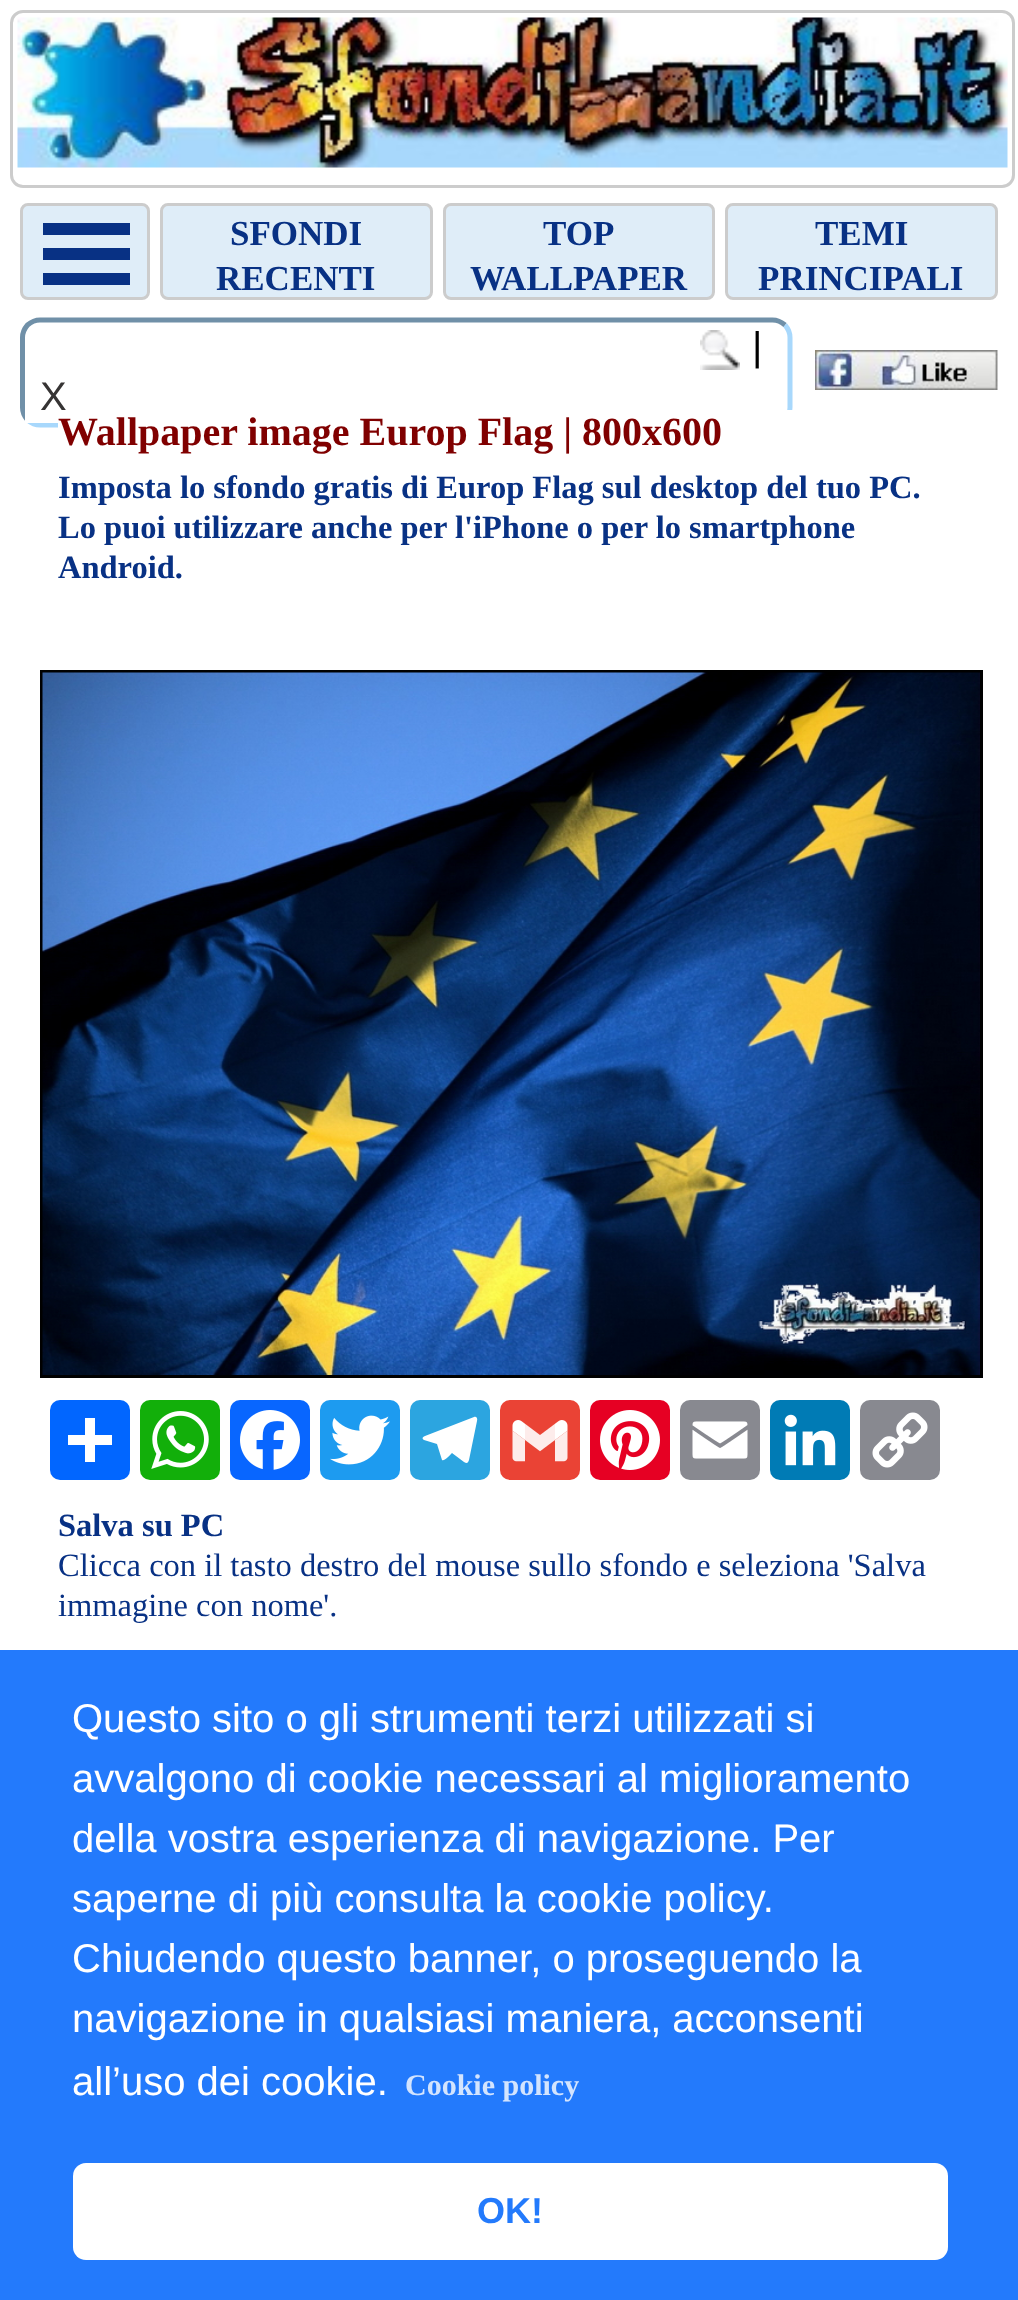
<svg xmlns="http://www.w3.org/2000/svg" width="1018" height="2300">
	<rect width="100%" height="100%" fill="#FFFFFF" />
	<rect x="11.5" y="11.5" width="1002" height="175" rx="11.5" fill="none" stroke="#CCCCCC" stroke-width="3" />
	<image x="17" y="17" width="991" height="151" href="assets/img1.png" />
	<rect x="21.5" y="204.5" width="127" height="94" rx="6.5" fill="#DFEDF8" stroke="#CCCCCC" stroke-width="3" />
	<rect x="43" y="223" width="87" height="12" fill="#083184" />
	<rect x="43" y="248" width="87" height="12" fill="#083184" />
	<rect x="43" y="273" width="87" height="12" fill="#083184" />
	<rect x="161.5" y="204.5" width="270" height="94" rx="6.5" fill="#DFEDF8" stroke="#CCCCCC" stroke-width="3" />
	<g font-family="Liberation Serif" font-size="35" font-weight="700" fill="#083184">
		<text x="230" y="245">SFONDI</text>
		<text x="216" y="290">RECENTI</text>
	</g>
	<rect x="444.5" y="204.5" width="269" height="94" rx="6.5" fill="#DFEDF8" stroke="#CCCCCC" stroke-width="3" />
	<g font-family="Liberation Serif" font-size="35" font-weight="700" fill="#083184">
		<text x="543" y="245">TOP</text>
		<text x="470" y="290">WALLPAPER</text>
	</g>
	<rect x="726.5" y="204.5" width="270" height="94" rx="6.5" fill="#DFEDF8" stroke="#CCCCCC" stroke-width="3" />
	<g font-family="Liberation Serif" font-size="35" font-weight="700" fill="#083184">
		<text x="815" y="245">TEMI</text>
		<text x="758" y="290">PRINCIPALI</text>
	</g>
	<path d="M785 325C788 328.5 790 333 790 337.5V407.5C790 412 788 416.5 785 420C781.5 423 777 425 772.5 425H40C35.5 425 31 423 27.5 420" fill="none" stroke="#A8D8FC" stroke-width="5" />
	<path d="M27.5 420C24.5 416.5 22.5 412 22.5 407.5V337.5C22.5 333 24.5 328.5 27.5 325C31 322 35.5 320 40 320H772.5C777 320 781.5 322 785 325" fill="none" stroke="#7090A8" stroke-width="5" />
	<image x="700" y="330" width="40" height="40" href="assets/img2.png" />
	<text x="752" y="360" font-family="Liberation Sans" font-size="40" fill="#000000">|</text>
	<rect x="25" y="408" width="58" height="15" fill="#FFFFFF" />
	<text x="40" y="410" font-family="Liberation Sans" font-size="40" fill="#363434">X</text>
	<image x="815" y="350" width="183" height="40" href="assets/img3.png" />
	<rect x="58" y="410" width="735" height="18" fill="#FFFFFF" />
	<text x="58" y="445" font-family="Liberation Serif" font-size="40" font-weight="700" fill="#800000">Wallpaper image Europ Flag | 800x600</text>
	<g font-family="Liberation Serif" font-size="32.5" font-weight="700" fill="#083184">
		<text x="58" y="498">Imposta lo sfondo gratis di Europ Flag sul desktop del tuo PC.</text>
		<text x="58" y="538">Lo puoi utilizzare anche per l'iPhone o per lo smartphone</text>
		<text x="58" y="578">Android.</text>
	</g>
	<rect x="41.5" y="671.5" width="940" height="705" fill="none" stroke="#000000" stroke-width="3" />
	<image x="42" y="672" width="938" height="703" href="assets/img4.png" />
	<rect x="50" y="1400" width="80" height="80" rx="10" fill="#0166FF" />
	<rect x="85" y="1418" width="10" height="44" fill="#FFFFFF" />
	<rect x="68" y="1435" width="44" height="10" fill="#FFFFFF" />
	<rect x="140" y="1400" width="80" height="80" rx="10" fill="#12AF0A" />
	<image x="151" y="1411" width="58" height="58" href="assets/img5.png" />
	<rect x="230" y="1400" width="80" height="80" rx="10" fill="#0866FF" />
	<image x="240" y="1410" width="60" height="60" href="assets/img6.png" />
	<rect x="320" y="1400" width="80" height="80" rx="10" fill="#1D9BF0" />
	<image x="330" y="1415" width="60" height="50" href="assets/img7.png" />
	<rect x="410" y="1400" width="80" height="80" rx="10" fill="#2CA5E0" />
	<path d="M474 1417L425 1436C422 1437 422 1439 424 1440L437 1444L442 1460C444 1462 451 1454 452 1453L464 1462C467 1464 468 1463 469 1460L477 1421C478 1418 476 1416 474 1417Z" fill="#FFFFFF" />
	<rect x="500" y="1400" width="80" height="80" rx="10" fill="#EA4335" />
	<image x="512" y="1420" width="56" height="42" href="assets/img8.png" />
	<rect x="590" y="1400" width="80" height="80" rx="10" fill="#E60023" />
	<image x="600" y="1410" width="60" height="60" href="assets/img9.png" />
	<rect x="680" y="1400" width="80" height="80" rx="10" fill="#888990" />
	<image x="692" y="1421" width="56" height="38" href="assets/img10.png" />
	<rect x="770" y="1400" width="80" height="80" rx="10" fill="#007BB5" />
	<image x="784" y="1414" width="52" height="52" href="assets/img11.png" />
	<rect x="860" y="1400" width="80" height="80" rx="10" fill="#888990" />
	<image x="872" y="1412" width="56" height="56" href="assets/img12.png" />
	<text x="58" y="1536" font-family="Liberation Serif" font-size="32.5" font-weight="700" fill="#083184">Salva su PC</text>
	<g font-family="Liberation Serif" font-size="32.5" fill="#083184">
		<text x="58" y="1576">Clicca con il tasto destro del mouse sullo sfondo e seleziona 'Salva</text>
		<text x="58" y="1616">immagine con nome'.</text>
	</g>
	<rect x="0" y="1650" width="1018" height="650" fill="#237AFC" />
	<g font-family="Liberation Sans" font-size="40" fill="#FFFFFF">
		<text x="72" y="1732">Questo sito o gli strumenti terzi utilizzati si</text>
		<text x="72" y="1792">avvalgono di cookie necessari al miglioramento</text>
		<text x="72" y="1852">della vostra esperienza di navigazione. Per</text>
		<text x="72" y="1912">saperne di più consulta la cookie policy.</text>
		<text x="72" y="1972">Chiudendo questo banner, o proseguendo la</text>
		<text x="72" y="2032">navigazione in qualsiasi maniera, acconsenti</text>
		<text x="72" y="2095">all’uso dei cookie.</text>
	</g>
	<text x="405" y="2095" font-family="Liberation Serif" font-size="30" font-weight="700" fill="#D3E4FE">Cookie policy</text>
	<rect x="73" y="2163" width="875" height="97" rx="13" fill="#FFFFFF" />
	<text x="477" y="2223" font-family="Liberation Sans" font-size="36" font-weight="700" fill="#237AFC">OK!</text>
</svg>
